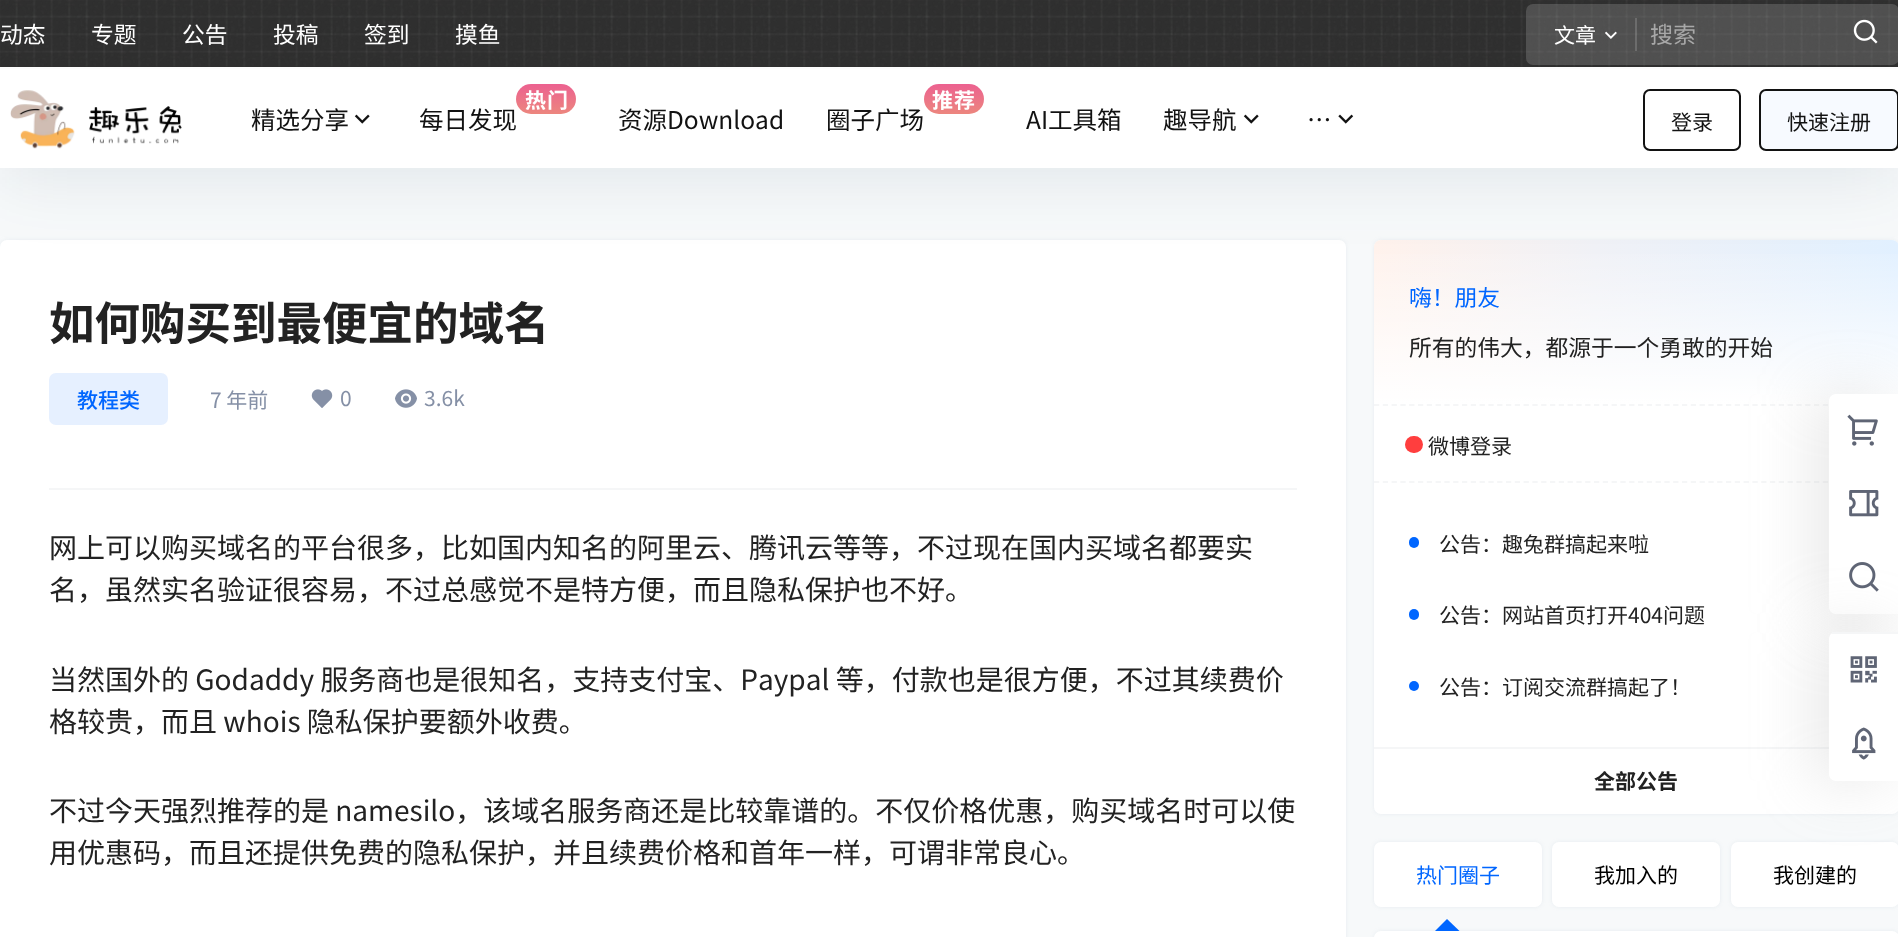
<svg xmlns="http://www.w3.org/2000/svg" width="1898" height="937">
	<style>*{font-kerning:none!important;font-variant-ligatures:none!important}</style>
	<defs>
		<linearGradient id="g1" gradientUnits="userSpaceOnUse" x1="1374" y1="322" x2="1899" y2="322"><stop offset="0" stop-color="#FFF2EC" /><stop offset="0.42" stop-color="#F0F1F6" /><stop offset="1" stop-color="#E1F0FF" /></linearGradient>
		<linearGradient id="g2" gradientUnits="userSpaceOnUse" x1="1636" y1="404" x2="1636" y2="240"><stop offset="0" stop-color="#FFFFFF" /><stop offset="1" stop-color="#FFFFFF" stop-opacity="0" /></linearGradient>
		<linearGradient id="g3" gradientUnits="userSpaceOnUse" x1="546" y1="114" x2="546" y2="84"><stop offset="0" stop-color="#EC867E" /><stop offset="1" stop-color="#EC6190" /></linearGradient>
		<linearGradient id="g4" gradientUnits="userSpaceOnUse" x1="954" y1="114" x2="954" y2="84"><stop offset="0" stop-color="#EC867E" /><stop offset="1" stop-color="#EC6190" /></linearGradient>
	</defs>
	<rect width="100%" height="100%" fill="#F7F9FA" />
	<rect x="0" y="240" width="1346" height="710" rx="7" fill="#627C99" fill-opacity="0.1" filter="blur(2px)" />
	<rect x="0" y="240" width="1346" height="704" rx="7" fill="#FFFFFF" />
	<rect x="1374" y="240" width="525" height="574" rx="7" fill="#627C99" fill-opacity="0.1" filter="blur(2px)" />
	<rect x="1374" y="240" width="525" height="574" rx="7" fill="#FFFFFF" />
	<path d="M1381 240H1892C1896 240 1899 243 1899 247V404H1374V247C1374 243 1377 240 1381 240Z" fill="url(#g1)" />
	<rect x="1374" y="254" width="524" height="150" fill="url(#g2)" />
	<rect x="0" y="9" width="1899" height="168" fill="#113A5D" fill-opacity="0.1" filter="blur(35px)" />
	<rect x="0" y="0" width="1898" height="67" fill="#2F2F2F" />
	<image x="0" y="0" width="1898" height="67" href="assets/img1.png" />
	<g font-family="Noto Sans CJK SC" font-size="22.75" fill="#FFFFFF">
		<text x="0" y="43">动态</text>
		<text x="91" y="43">专题</text>
		<text x="182" y="43">公告</text>
		<text x="273" y="43">投稿</text>
		<text x="364" y="43">签到</text>
		<text x="455" y="43">摸鱼</text>
	</g>
	<rect x="1526" y="4" width="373" height="61" rx="7" fill="#CCCCCC" fill-opacity="0.21" />
	<rect x="1635" y="18" width="2" height="33" fill="#FFFFFF" fill-opacity="0.16" />
	<text x="1554" y="43" font-family="Noto Sans CJK SC" font-size="21" fill="#FFFFFF">文章</text>
	<image x="1605" y="31" width="12" height="8" href="assets/img2.png" />
	<text x="1650" y="43" font-family="Noto Sans CJK SC" font-size="23" fill="#A8A8A8">搜索</text>
	<image x="1853" y="19" width="25" height="25" href="assets/img3.png" />
	<rect x="0" y="69" width="1898" height="99" fill="#FFFFFF" />
	<rect x="0" y="67" width="1898" height="2" fill="#FCFCFC" />
	<image x="10" y="90" width="172" height="59" href="assets/img4.png" />
	<text x="251" y="129" font-family="Noto Sans CJK SC" font-size="24.5" fill="#121212">精选分享</text>
	<image x="354" y="114" width="16" height="10" href="assets/img5.png" />
	<rect x="516" y="84" width="60" height="30" rx="15" fill="url(#g3)" />
	<text x="525" y="108" font-family="Noto Sans CJK SC" font-size="21" font-weight="700" letter-spacing="1" fill="#FFFFFF">热门</text>
	<g font-family="Noto Sans CJK SC" font-size="24.5" fill="#121212">
		<text x="419" y="129">每日发现</text>
		<text x="618" y="129">资源Download</text>
	</g>
	<rect x="924" y="84" width="60" height="30" rx="15" fill="url(#g4)" />
	<text x="932" y="108" font-family="Noto Sans CJK SC" font-size="21" font-weight="700" letter-spacing="1" fill="#FFFFFF">推荐</text>
	<g font-family="Noto Sans CJK SC" font-size="24.5" fill="#121212">
		<text x="826" y="129">圈子广场</text>
		<text x="1026" y="129">AI工具箱</text>
		<text x="1163" y="129">趣导航</text>
	</g>
	<image x="1243" y="114" width="16" height="10" href="assets/img5.png" />
	<text x="1307" y="129" font-family="Noto Sans CJK SC" font-size="24.5" fill="#121212">…</text>
	<image x="1338" y="114" width="16" height="10" href="assets/img6.png" />
	<rect x="1644" y="90" width="96" height="60" rx="6" fill="none" stroke="#121212" stroke-width="2" />
	<text x="1671" y="130" font-family="Noto Sans CJK SC" font-size="21" fill="#121212">登录</text>
	<rect x="1760" y="90" width="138" height="60" rx="6" fill="#F7FAFF" stroke="#121212" stroke-width="2" />
	<text x="1787" y="130" font-family="Noto Sans CJK SC" font-size="21" fill="#121212">快速注册</text>
	<rect x="49" y="488" width="1248" height="2" fill="#F5F6F7" />
	<text x="49" y="340" font-family="Noto Sans CJK SC" font-size="45.5" font-weight="700" fill="#222222">如何购买到最便宜的域名</text>
	<rect x="49" y="373" width="119" height="52" rx="7" fill="#E6F0FF" />
	<text x="77" y="408" font-family="Noto Sans CJK SC" font-size="21" font-weight="500" fill="#0066FF">教程类</text>
	<text x="210" y="408" font-family="Noto Sans CJK SC" font-size="21" fill="#8590A6">7 年前</text>
	<image x="311" y="389" width="22" height="19" href="assets/img7.png" />
	<text x="340" y="406" font-family="Noto Sans CJK SC" font-size="21" fill="#8590A6">0</text>
	<image x="395" y="389" width="22" height="19" href="assets/img8.png" />
	<text x="424" y="406" font-family="Noto Sans CJK SC" font-size="21" fill="#8590A6">3.6k</text>
	<g font-family="Noto Sans CJK SC" font-size="28" fill="#222222">
		<text x="49" y="558">网上可以购买域名的平台很多，比如国内知名的阿里云、腾讯云等等，不过现在国内买域名都要实</text>
		<text x="49" y="600">名，虽然实名验证很容易，不过总感觉不是特方便，而且隐私保护也不好。</text>
		<text x="49" y="690">当然国外的 Godaddy 服务商也是很知名，支持支付宝、Paypal 等，付款也是很方便，不过其续费价</text>
		<text x="49" y="732">格较贵，而且 whois 隐私保护要额外收费。</text>
		<text x="49" y="821">不过今天强烈推荐的是 namesilo，该域名服务商还是比较靠谱的。不仅价格优惠，购买域名时可以使</text>
		<text x="49" y="863">用优惠码，而且还提供免费的隐私保护，并且续费价格和首年一样，可谓非常良心。</text>
	</g>
	<text x="1409" y="306" font-family="Noto Sans CJK SC" font-size="22.75" fill="#0066FF">嗨！朋友</text>
	<text x="1409" y="356" font-family="Noto Sans CJK SC" font-size="22.75" fill="#222222">所有的伟大，都源于一个勇敢的开始</text>
	<path d="M1374 405H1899" fill="none" stroke="#F5F6F7" stroke-width="1.8" stroke-dasharray="5.25 3.55" />
	<path d="M1374 482H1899" fill="none" stroke="#F5F6F7" stroke-width="1.8" stroke-dasharray="5.25 3.55" />
	<rect x="1405" y="436" width="18" height="17" rx="8.5" fill="#FF3E3E" />
	<text x="1428" y="454" font-family="Noto Sans CJK SC" font-size="21" fill="#222222">微博登录</text>
	<rect x="1409" y="537" width="10" height="11" rx="5" fill="#0066FF" />
	<text x="1439" y="552" font-family="Noto Sans CJK SC" font-size="21" fill="#222222">公告：趣兔群搞起来啦</text>
	<rect x="1409" y="609" width="10" height="11" rx="5" fill="#0066FF" />
	<text x="1439" y="623" font-family="Noto Sans CJK SC" font-size="21" fill="#222222">公告：网站首页打开404问题</text>
	<circle cx="1414" cy="686" r="5" fill="#0066FF" />
	<text x="1439" y="695" font-family="Noto Sans CJK SC" font-size="21" fill="#222222">公告：订阅交流群搞起了！</text>
	<rect x="1374" y="747" width="455" height="2" fill="#F5F6F7" />
	<text x="1594" y="789" font-family="Noto Sans CJK SC" font-size="21" font-weight="700" fill="#222222">全部公告</text>
	<rect x="1374" y="842" width="168" height="65" rx="7" fill="#627C99" fill-opacity="0.1" filter="blur(2px)" />
	<rect x="1374" y="842" width="168" height="65" rx="7" fill="#FFFFFF" />
	<text x="1416" y="883" font-family="Noto Sans CJK SC" font-size="21" fill="#0066FF">热门圈子</text>
	<rect x="1374" y="931" width="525" height="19" rx="7" fill="#627C99" fill-opacity="0.1" filter="blur(2px)" />
	<path d="M1459.5 931H1435L1447 919Z" fill="#0066FF" />
	<rect x="1552" y="842" width="168" height="65" rx="7" fill="#627C99" fill-opacity="0.1" filter="blur(2px)" />
	<rect x="1552" y="842" width="168" height="65" rx="7" fill="#FFFFFF" />
	<text x="1594" y="883" font-family="Noto Sans CJK SC" font-size="21" fill="#000000">我加入的</text>
	<rect x="1731" y="842" width="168" height="65" rx="7" fill="#627C99" fill-opacity="0.1" filter="blur(2px)" />
	<rect x="1731" y="842" width="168" height="65" rx="7" fill="#FFFFFF" />
	<text x="1773" y="883" font-family="Noto Sans CJK SC" font-size="21" fill="#000000">我创建的</text>
	<rect x="1374" y="931" width="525" height="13" rx="7" fill="#FFFFFF" />
	<rect x="1815" y="394" width="70" height="220" rx="7" fill="#B5B5B5" fill-opacity="0.32" filter="blur(30.5px)" />
	<path d="M1836 394H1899V614H1836C1832 614 1829 611 1829 607V401C1829 397 1832 394 1836 394Z" fill="#FFFFFF" />
	<image x="1847" y="414" width="31" height="32" href="assets/img9.png" />
	<image x="1849" y="490" width="30" height="27" href="assets/img10.png" />
	<image x="1849" y="562" width="30" height="30" href="assets/img11.png" />
	<rect x="1815" y="632" width="70" height="149" rx="7" fill="#B5B5B5" fill-opacity="0.32" filter="blur(30.5px)" />
	<path d="M1836 632H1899V781H1836C1832 781 1829 778 1829 774V639C1829 635 1832 632 1836 632Z" fill="#FFFFFF" />
	<rect x="1832" y="632" width="66" height="2" fill="#F5F6F7" />
	<image x="1850" y="656" width="27" height="27" href="assets/img12.png" />
	<image x="1852" y="727" width="24" height="33" href="assets/img13.png" />
</svg>
